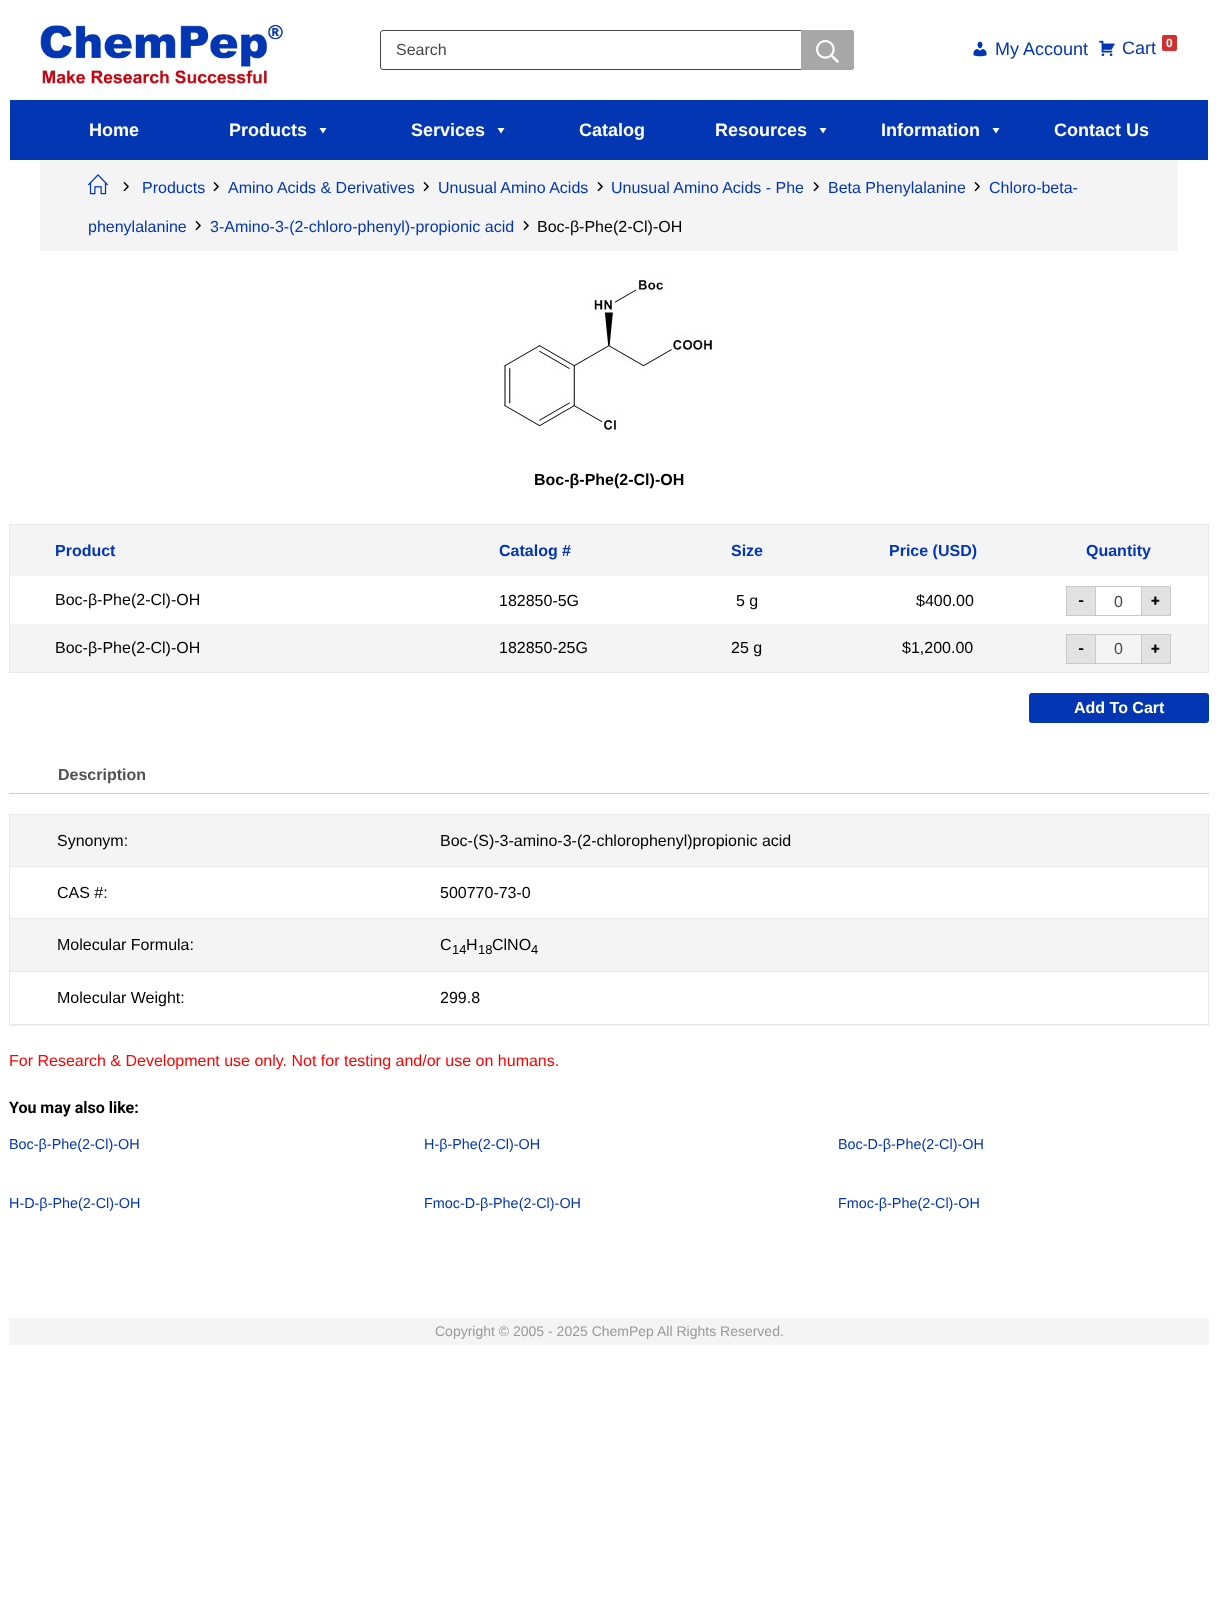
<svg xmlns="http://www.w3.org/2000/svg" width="1218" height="1606">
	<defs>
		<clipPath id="clip1"><rect x="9" y="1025" width="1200" height="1" /></clipPath>
	</defs>
	<rect width="100%" height="100%" fill="#FFFFFF" />
	<image x="40" y="24" width="243" height="60" href="assets/img1.png" />
	<rect x="380.5" y="30.5" width="473" height="39" rx="2.5" fill="none" stroke="#484848" />
	<text x="396" y="55" font-family="Liberation Sans" font-size="16" fill="#484848">Search</text>
	<path d="M801 30H851C852.5 30 854 31.5 854 33V67C854 68.5 852.5 70 851 70H801Z" fill="#A7A7A7" />
	<image x="816" y="40" width="23" height="23" href="assets/img2.png" />
	<image x="973" y="41" width="14" height="16" href="assets/img3.png" />
	<text x="995" y="55" font-family="Liberation Sans" font-size="18" fill="#0336B3">My Account</text>
	<rect x="1088" y="53" width="1" height="2" fill="#FFFFFF" />
	<image x="1099" y="40" width="16" height="16" href="assets/img4.png" />
	<text x="1122" y="54" font-family="Liberation Sans" font-size="18" fill="#0336B3">Cart</text>
	<rect x="1162" y="35" width="15" height="16" rx="2" fill="#D32F2F" />
	<text x="1166" y="47" font-family="Liberation Sans" font-size="12" font-weight="700" fill="#FFFFFF">0</text>
	<rect x="10" y="100" width="1198" height="60" fill="#0336B3" />
	<g font-family="Liberation Sans" font-size="18" font-weight="700" fill="#FFFFFF">
		<text x="89" y="136">Home</text>
		<text x="229" y="136">Products</text>
	</g>
	<path d="M326.5 128L323 133.5L319.5 128Z" fill="#FFFFFF" />
	<text x="411" y="136" font-family="Liberation Sans" font-size="18" font-weight="700" fill="#FFFFFF">Services</text>
	<path d="M504.5 128L501 133.5L497.5 128Z" fill="#FFFFFF" />
	<g font-family="Liberation Sans" font-size="18" font-weight="700" fill="#FFFFFF">
		<text x="579" y="136">Catalog</text>
		<text x="715" y="136">Resources</text>
	</g>
	<path d="M826.5 128L823 133.5L819.5 128Z" fill="#FFFFFF" />
	<text x="881" y="136" font-family="Liberation Sans" font-size="18" font-weight="700" fill="#FFFFFF">Information</text>
	<path d="M999.5 128L996 133.5L992.5 128Z" fill="#FFFFFF" />
	<text x="1054" y="136" font-family="Liberation Sans" font-size="18" font-weight="700" fill="#FFFFFF">Contact Us</text>
	<rect x="40" y="161" width="1138" height="90" fill="#F4F4F4" />
	<image x="88" y="174" width="20" height="21" href="assets/img5.png" />
	<image x="123" y="182" width="6" height="10" href="assets/img6.png" />
	<text x="142" y="193" font-family="Liberation Sans" font-size="16" fill="#0336B3">Products</text>
	<image x="213" y="182" width="6" height="10" href="assets/img6.png" />
	<text x="228" y="193" font-family="Liberation Sans" font-size="16" fill="#0336B3">Amino Acids &amp; Derivatives</text>
	<image x="423" y="182" width="6" height="10" href="assets/img6.png" />
	<text x="438" y="193" font-family="Liberation Sans" font-size="16" fill="#0336B3">Unusual Amino Acids</text>
	<image x="597" y="182" width="6" height="10" href="assets/img6.png" />
	<text x="611" y="193" font-family="Liberation Sans" font-size="16" fill="#0336B3">Unusual Amino Acids - Phe</text>
	<image x="813" y="182" width="6" height="10" href="assets/img6.png" />
	<text x="828" y="193" font-family="Liberation Sans" font-size="16" fill="#0336B3">Beta Phenylalanine</text>
	<image x="974" y="182" width="6" height="10" href="assets/img6.png" />
	<g font-family="Liberation Sans" font-size="16" fill="#0336B3">
		<text x="989" y="193">Chloro-beta-</text>
		<text x="88" y="232">phenylalanine</text>
	</g>
	<image x="195" y="221" width="6" height="10" href="assets/img6.png" />
	<text x="210" y="232" font-family="Liberation Sans" font-size="16" fill="#0336B3">3-Amino-3-(2-chloro-phenyl)-propionic acid</text>
	<image x="523" y="221" width="6" height="10" href="assets/img6.png" />
	<text x="537" y="232" font-family="Liberation Sans" font-size="16" fill="#000000">Boc-β-Phe(2-Cl)-OH</text>
	<image x="502" y="277" width="214" height="156" href="assets/img7.png" />
	<text x="534" y="485" font-family="Liberation Sans" font-size="16" font-weight="700" fill="#000000">Boc-β-Phe(2-Cl)-OH</text>
	<rect x="9" y="524" width="1200" height="1" fill="#E8E8E8" />
	<rect x="1208" y="524" width="1" height="149" fill="#E8E8E8" />
	<rect x="9" y="672" width="1200" height="1" fill="#E8E8E8" />
	<rect x="9" y="524" width="1" height="149" fill="#E8E8E8" />
	<rect x="10" y="525" width="1198" height="51" fill="#F4F4F4" />
	<g font-family="Liberation Sans" font-size="16" font-weight="700" fill="#0336B3">
		<text x="55" y="556">Product</text>
		<text x="499" y="556">Catalog #</text>
		<text x="731" y="556">Size</text>
		<text x="889" y="556">Price (USD)</text>
		<text x="1086" y="556">Quantity</text>
	</g>
	<g font-family="Liberation Sans" font-size="16" fill="#000000">
		<text x="55" y="605">Boc-β-Phe(2-Cl)-OH</text>
		<text x="499" y="606">182850-5G</text>
		<text x="736" y="606">5 g</text>
		<text x="916" y="606">$400.00</text>
	</g>
	<rect x="1066.5" y="586.5" width="29" height="29" fill="#E2E2E2" stroke="#CAC9C9" />
	<text x="1078" y="606" font-family="Roboto" font-size="16" font-weight="700" fill="#000000">-</text>
	<rect x="1096" y="586" width="45" height="1" fill="#CAC9C9" />
	<rect x="1096" y="615" width="45" height="1" fill="#CAC9C9" />
	<text x="1114" y="607" font-family="Liberation Sans" font-size="16" fill="#484848">0</text>
	<rect x="1141.5" y="586.5" width="29" height="29" fill="#E2E2E2" stroke="#CAC9C9" />
	<text x="1151" y="606" font-family="Roboto" font-size="16" font-weight="700" fill="#000000">+</text>
	<rect x="10" y="624" width="1198" height="48" fill="#F4F4F4" />
	<g font-family="Liberation Sans" font-size="16" fill="#000000">
		<text x="55" y="653">Boc-β-Phe(2-Cl)-OH</text>
		<text x="499" y="653">182850-25G</text>
		<text x="731" y="653">25 g</text>
		<text x="902" y="653">$1,200.00</text>
	</g>
	<rect x="1066.5" y="634.5" width="29" height="29" fill="#E2E2E2" stroke="#CAC9C9" />
	<text x="1078" y="654" font-family="Roboto" font-size="16" font-weight="700" fill="#000000">-</text>
	<rect x="1096" y="634" width="45" height="1" fill="#CAC9C9" />
	<rect x="1096" y="663" width="45" height="1" fill="#CAC9C9" />
	<text x="1114" y="654" font-family="Liberation Sans" font-size="16" fill="#484848">0</text>
	<rect x="1141.5" y="634.5" width="29" height="29" fill="#E2E2E2" stroke="#CAC9C9" />
	<text x="1151" y="654" font-family="Roboto" font-size="16" font-weight="700" fill="#000000">+</text>
	<rect x="1029" y="693" width="180" height="30" rx="3" fill="#0336B3" />
	<text x="1074" y="713" font-family="Liberation Sans" font-size="16" font-weight="700" fill="#FFFFFF">Add To Cart</text>
	<text x="58" y="780" font-family="Liberation Sans" font-size="16" font-weight="700" fill="#515151">Description</text>
	<rect x="9" y="793" width="1200" height="1" fill="#CFC8D8" />
	<g clip-path="url(#clip1)">
		<rect x="9" y="815" width="1200" height="211" fill="#000000" fill-opacity="0.05" filter="blur(0.5px)" />
	</g>
	<rect x="1208" y="814" width="1" height="211" fill="#E8E8E8" />
	<rect x="9" y="1024" width="1200" height="1" fill="#E8E8E8" />
	<rect x="9" y="814" width="1" height="211" fill="#E8E8E8" />
	<rect x="10" y="815" width="1198" height="51" fill="#F4F4F4" />
	<text x="57" y="846" font-family="Liberation Sans" font-size="16" fill="#000000">Synonym:</text>
	<rect x="10" y="814" width="1199" height="1" fill="#E9E9E9" />
	<g font-family="Liberation Sans" font-size="16" fill="#000000">
		<text x="440" y="846">Boc-(S)-3-amino-3-(2-chlorophenyl)propionic acid</text>
		<text x="57" y="898">CAS #:</text>
	</g>
	<rect x="10" y="866" width="1199" height="1" fill="#E9E9E9" />
	<text x="440" y="898" font-family="Liberation Sans" font-size="16" fill="#000000">500770-73-0</text>
	<rect x="10" y="919" width="1198" height="52" fill="#F4F4F4" />
	<text x="57" y="950" font-family="Liberation Sans" font-size="16" fill="#000000">Molecular Formula:</text>
	<rect x="10" y="918" width="1199" height="1" fill="#E9E9E9" />
	<text x="440" y="950" font-family="Liberation Sans" font-size="16" fill="#000000">C</text>
	<text x="452" y="954" font-family="Liberation Sans" font-size="13" fill="#000000">14</text>
	<text x="466" y="950" font-family="Liberation Sans" font-size="16" fill="#000000">H</text>
	<text x="478" y="954" font-family="Liberation Sans" font-size="13" fill="#000000">18</text>
	<text x="492" y="950" font-family="Liberation Sans" font-size="16" fill="#000000">ClNO</text>
	<text x="531" y="954" font-family="Liberation Sans" font-size="13" fill="#000000">4</text>
	<text x="57" y="1003" font-family="Liberation Sans" font-size="16" fill="#000000">Molecular Weight:</text>
	<rect x="10" y="971" width="1199" height="1" fill="#E9E9E9" />
	<text x="440" y="1003" font-family="Liberation Sans" font-size="16" fill="#000000">299.8</text>
	<text x="9" y="1066" font-family="Liberation Sans" font-size="16" fill="#FF0000">For Research &amp; Development use only. Not for testing and/or use on humans.</text>
	<text x="9" y="1113" font-family="Roboto" font-size="16" font-weight="700" fill="#000000">You may also like:</text>
	<g font-family="Liberation Sans" font-size="14.4" fill="#0336B3">
		<text x="9" y="1149">Boc-β-Phe(2-Cl)-OH</text>
		<text x="424" y="1149">H-β-Phe(2-Cl)-OH</text>
		<text x="838" y="1149">Boc-D-β-Phe(2-Cl)-OH</text>
		<text x="9" y="1208">H-D-β-Phe(2-Cl)-OH</text>
		<text x="424" y="1208">Fmoc-D-β-Phe(2-Cl)-OH</text>
		<text x="838" y="1208">Fmoc-β-Phe(2-Cl)-OH</text>
	</g>
	<rect x="9" y="1318" width="1200" height="27" fill="#F4F4F4" />
	<text x="435" y="1336" font-family="Liberation Sans" font-size="14" fill="#999999">Copyright © 2005 - 2025 ChemPep All Rights Reserved.</text>
</svg>
